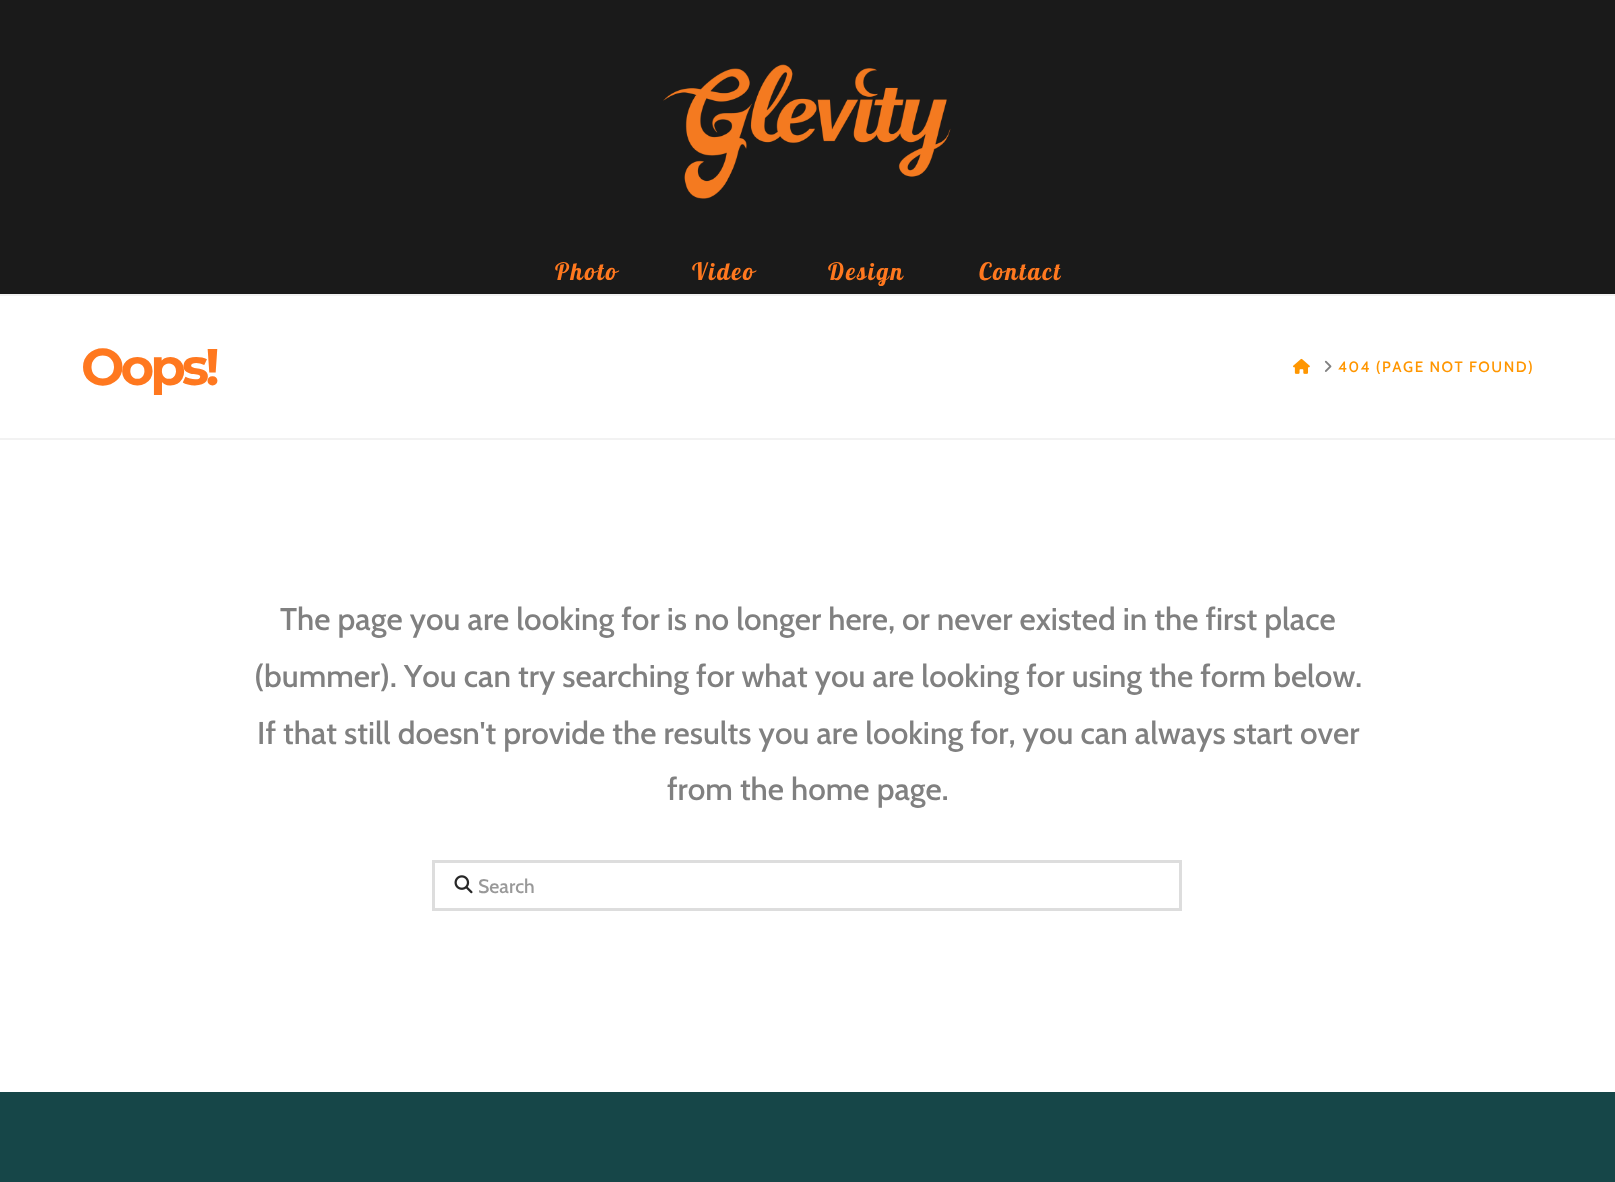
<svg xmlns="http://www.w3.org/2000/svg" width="1615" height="1182">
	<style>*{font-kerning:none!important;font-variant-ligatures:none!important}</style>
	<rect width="100%" height="100%" fill="#FFFFFF" />
	<rect x="0" y="0" width="1615" height="294" fill="#1A1A1A" />
	<image x="663" y="64" width="288" height="135" href="assets/img1.png" />
	<g font-family="Lobster" font-size="24" letter-spacing="2" fill="#FF781F">
		<text x="555" y="280">Photo</text>
		<text x="692" y="280">Video</text>
		<text x="828" y="280">Design</text>
		<text x="979" y="280">Contact</text>
	</g>
	<rect x="0" y="294" width="1615" height="2" fill="#F2F2F2" />
	<rect x="0" y="438" width="1615" height="2" fill="#F2F2F2" />
	<text x="81" y="385" font-family="Montserrat" font-size="51.5" font-weight="100" letter-spacing="-4" fill="#FF781F">Oops!</text>
	<image x="1293" y="358" width="17" height="16" href="assets/img2.png" />
	<image x="1324" y="360" width="8" height="12" href="assets/img3.png" />
	<text x="1338" y="372" font-family="Cabin" font-size="15" font-weight="500" letter-spacing="1.5" fill="#FF9600">404 (PAGE NOT FOUND)</text>
	<g font-family="Cabin" font-size="31.5" font-weight="500" fill="#808080">
		<text x="280" y="630">The page you are looking for is no longer here, or never existed in the first place</text>
		<text x="254" y="687">(bummer). You can try searching for what you are looking for using the form below.</text>
		<text x="257" y="744">If that still doesn't provide the results you are looking for, you can always start over</text>
		<text x="667" y="800">from the home page.</text>
	</g>
	<rect x="433.5" y="861.5" width="747" height="48" fill="none" stroke="#DDDDDD" stroke-width="3" />
	<image x="454" y="875" width="19" height="19" href="assets/img4.png" />
	<text x="478" y="893" font-family="Cabin" font-size="19.5" font-weight="500" fill="#999999">Search</text>
	<rect x="0" y="1092" width="1615" height="90" fill="#164648" />
</svg>
